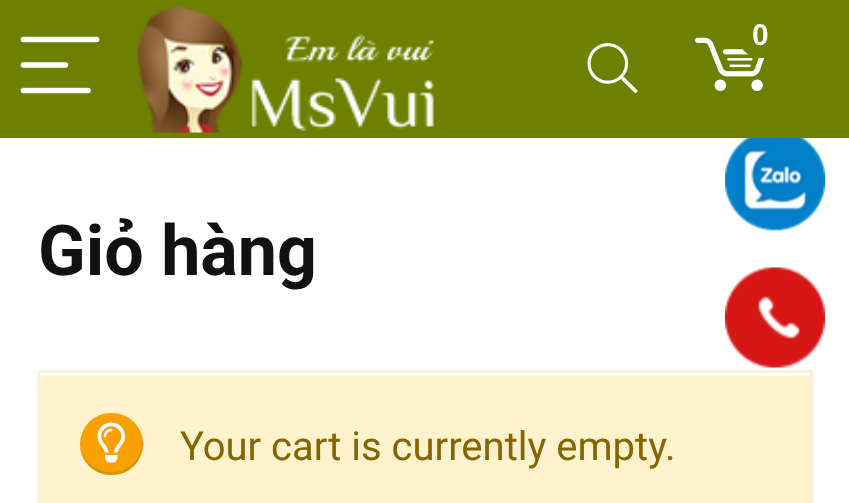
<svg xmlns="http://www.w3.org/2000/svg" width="849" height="503">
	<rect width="100%" height="100%" fill="#FFFFFF" />
	<rect x="0" y="0" width="849" height="138" fill="#6E8000" />
	<path d="M23.5 39.5H96.5" fill="none" stroke="#FFFFFF" stroke-width="5.6" stroke-linecap="round" />
	<path d="M23.5 65H65.5" fill="none" stroke="#FFFFFF" stroke-width="5.6" stroke-linecap="round" />
	<path d="M23.5 90.5H88" fill="none" stroke="#FFFFFF" stroke-width="5.6" stroke-linecap="round" />
	<image x="137" y="7" width="297" height="126" href="assets/img1.png" />
	<image x="695" y="37" width="70" height="54" href="assets/img2.png" />
	<circle cx="760.5" cy="35.5" r="22.5" fill="#6E8000" />
	<text x="752" y="45" font-family="Liberation Sans" font-size="30" font-weight="700" fill="#FFFFFF">0</text>
	<image x="587" y="43" width="51" height="51" href="assets/img3.png" />
	<text x="38" y="275" font-family="Roboto" font-size="70" font-weight="700" fill="#111111">Giỏ hàng</text>
	<rect x="38" y="373" width="775" height="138" fill="#000000" fill-opacity="0.05" filter="blur(2.5px)" />
	<rect x="38" y="370" width="775" height="133" fill="#FFF3CD" />
	<rect x="40" y="373" width="770" height="3" fill="#FFFFFF" />
	<rect x="39.5" y="371.5" width="772" height="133" fill="none" stroke="#EEEEEE" stroke-opacity="0.33" stroke-width="3" />
	<rect x="80" y="413" width="63" height="62" rx="31" fill="#F7A000" />
	<path d="M80 443C78 477 127 488 141 456C144 449 144 440 141 433C143 440 142 447 140 453C128 484 81 475 80 443Z" fill="#000000" fill-opacity="0.1" />
	<image x="97" y="422" width="28" height="41" href="assets/img4.png" />
	<text x="180" y="460" font-family="Roboto" font-size="40" fill="#856404">Your cart is currently empty.</text>
	<image x="725" y="138" width="100" height="93" href="assets/img5.png" />
	<image x="725" y="267" width="100" height="101" href="assets/img6.png" />
</svg>
